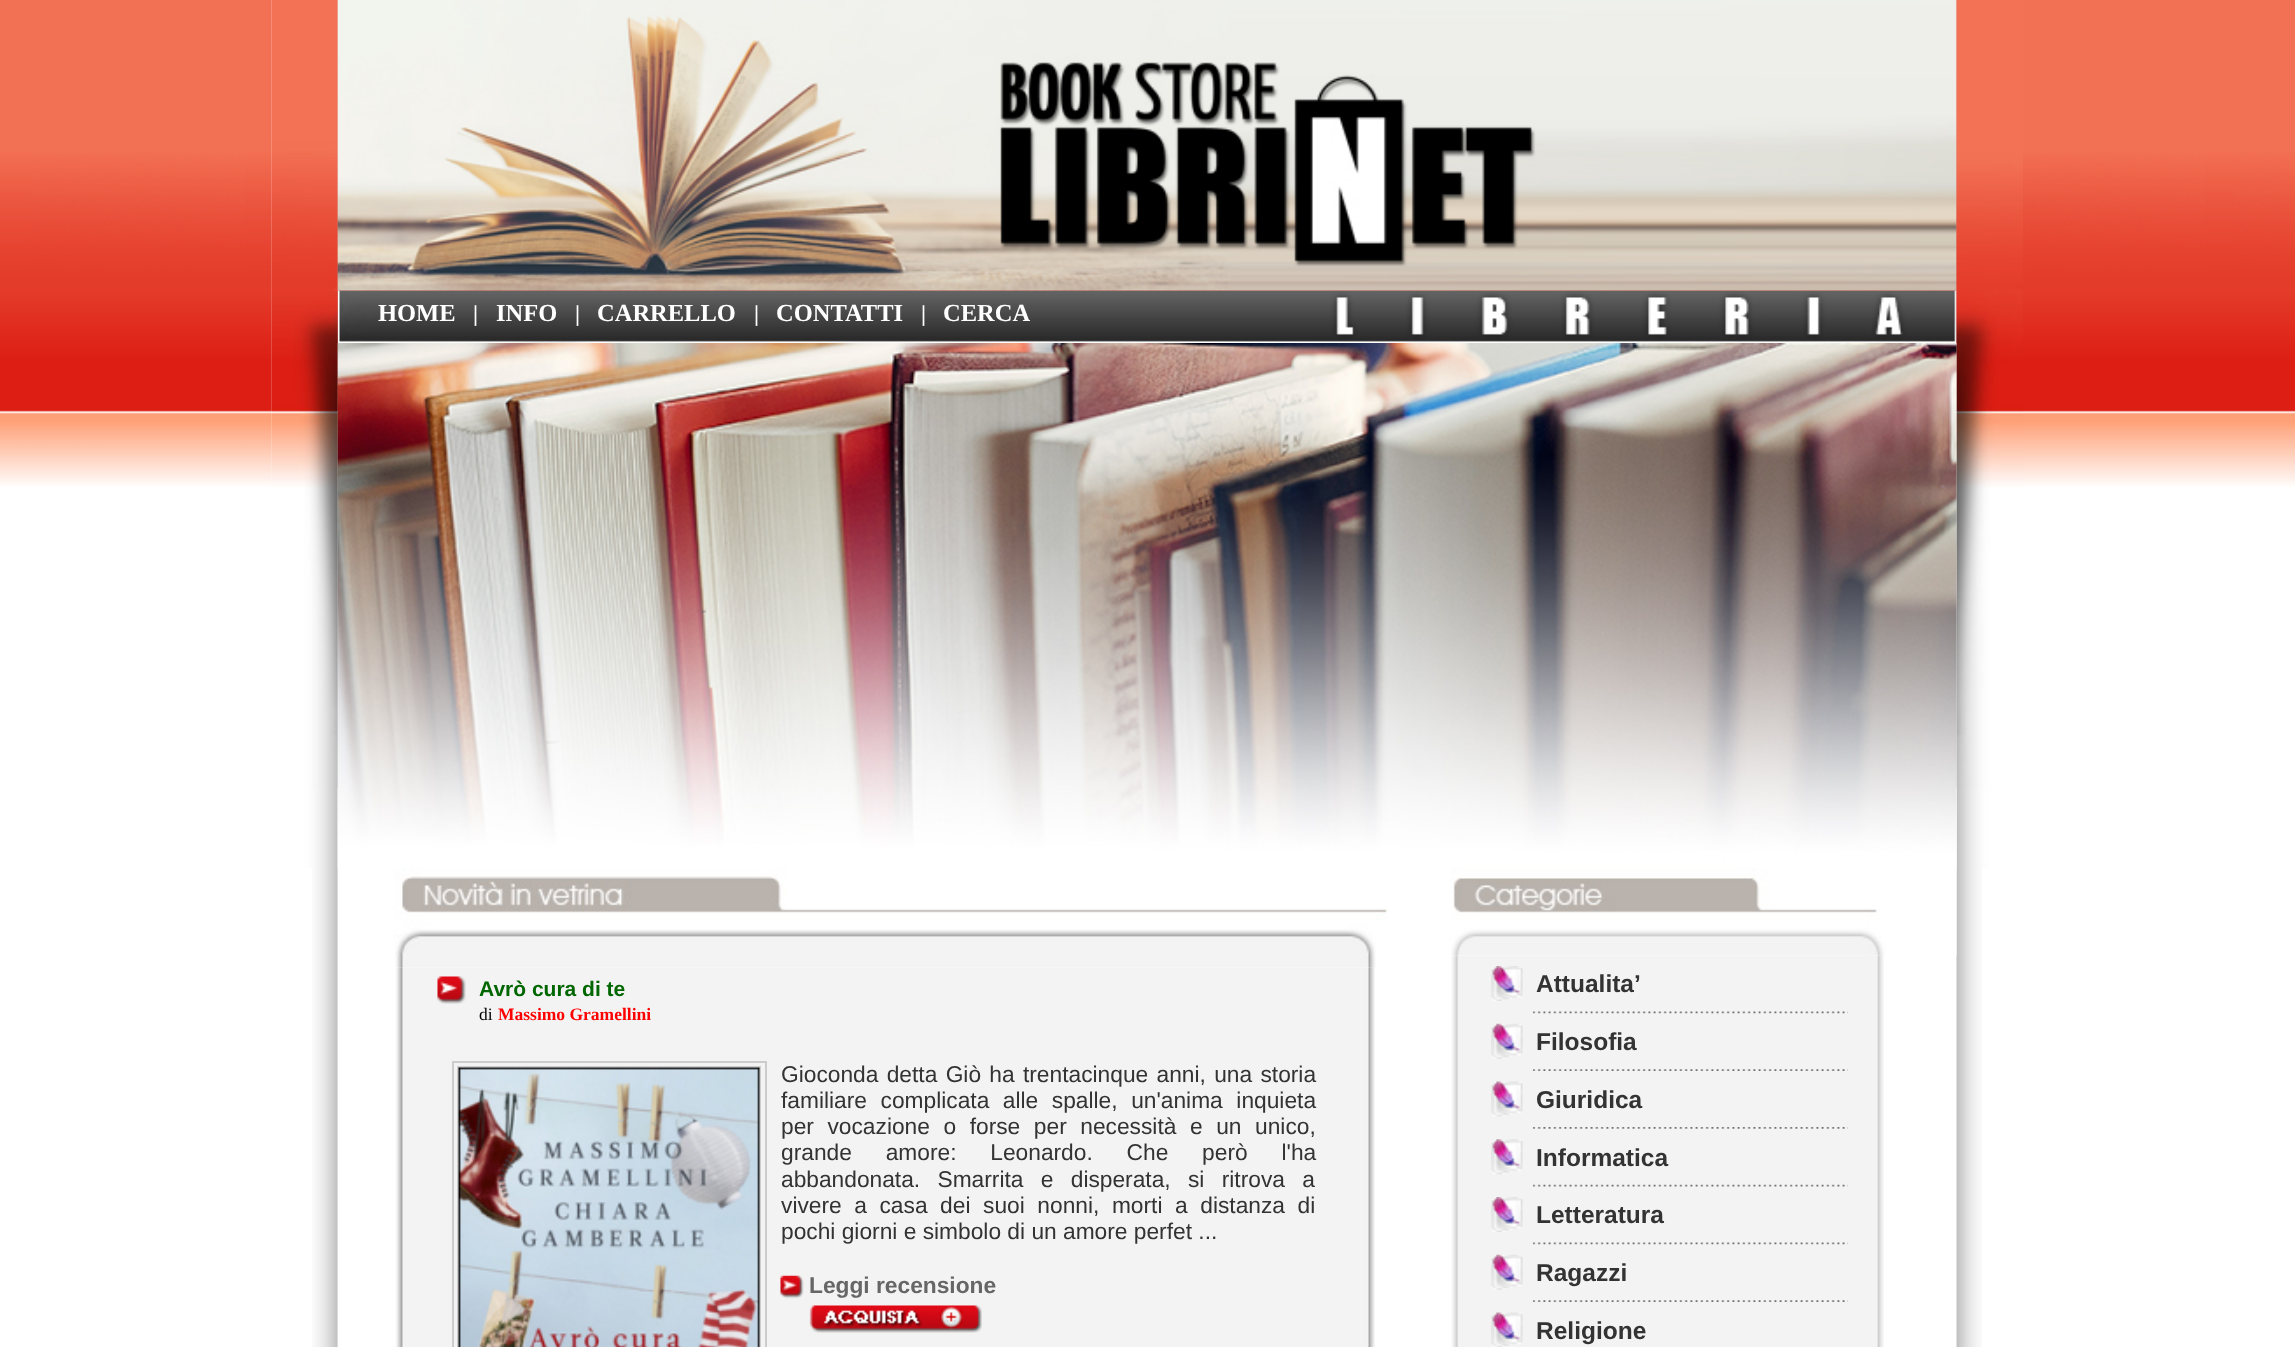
<svg xmlns="http://www.w3.org/2000/svg" width="2295" height="1347">
	<rect width="100%" height="100%" fill="#FFFFFF" />
	<image x="0" y="0" width="2295" height="487" href="assets/img1.png" />
	<image x="271" y="0" width="67" height="868" href="assets/img2.png" />
	<image x="1956" y="0" width="67" height="868" href="assets/img5.png" />
	<image x="337" y="290" width="1620" height="53" href="assets/img7.png" />
	<image x="337" y="343" width="1620" height="525" href="assets/img8.png" />
	<image x="271" y="0" width="67" height="788" href="assets/img3.png" />
	<image x="337" y="0" width="1620" height="291" href="assets/img4.png" />
	<image x="1956" y="0" width="67" height="788" href="assets/img6.png" />
	<text x="378" y="321" font-family="Liberation Serif" font-size="24.5" font-weight="700" fill="#FFFFFF">HOME</text>
	<text x="473" y="321" font-family="Liberation Serif" font-size="22.75" font-weight="700" fill="#FFFFFF">|</text>
	<text x="496" y="321" font-family="Liberation Serif" font-size="24.5" font-weight="700" fill="#FFFFFF">INFO</text>
	<text x="575" y="321" font-family="Liberation Serif" font-size="22.75" font-weight="700" fill="#FFFFFF">|</text>
	<text x="597" y="321" font-family="Liberation Serif" font-size="24.5" font-weight="700" fill="#FFFFFF">CARRELLO</text>
	<text x="754" y="321" font-family="Liberation Serif" font-size="22.75" font-weight="700" fill="#FFFFFF">|</text>
	<text x="776" y="321" font-family="Liberation Serif" font-size="24.5" font-weight="700" fill="#FFFFFF">CONTATTI</text>
	<text x="921" y="321" font-family="Liberation Serif" font-size="22.75" font-weight="700" fill="#FFFFFF">|</text>
	<text x="943" y="321" font-family="Liberation Serif" font-size="24.5" font-weight="700" fill="#FFFFFF">CERCA</text>
	<image x="337" y="343" width="1620" height="525" href="assets/img9.png" />
	<image x="312" y="868" width="26" height="479" href="assets/img10.png" />
	<image x="337" y="868" width="1051" height="53" href="assets/img11.png" />
	<image x="337" y="967" width="1038" height="380" href="assets/img13.png" />
	<image x="337" y="920" width="1039" height="48" href="assets/img12.png" />
	<image x="437" y="976" width="29" height="28" href="assets/img14.png" />
	<text x="479" y="996" font-family="Liberation Sans" font-size="21" font-weight="700" fill="#006600">Avrò cura di te</text>
	<text x="479" y="1020" font-family="Liberation Serif" font-size="17.5" fill="#000000">di</text>
	<text x="498" y="1020" font-family="Liberation Serif" font-size="17.5" font-weight="700" fill="#FF0000">Massimo Gramellini</text>
	<rect x="453" y="1062" width="313" height="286" fill="none" stroke="#CCCCCC" stroke-width="2" />
	<rect x="458" y="1067" width="302" height="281" fill="none" stroke="#CCCCCC" stroke-width="2" />
	<image x="458" y="1067" width="302" height="280" href="assets/img15.png" />
	<g font-family="Liberation Sans" font-size="22.75" fill="#333333">
		<text x="781" y="1082" word-spacing="2">Gioconda detta Giò ha trentacinque anni, una storia</text>
		<text x="781" y="1108" word-spacing="7.25">familiare complicata alle spalle, un'anima inquieta</text>
		<text x="781" y="1134" word-spacing="7.25">per vocazione o forse per necessità e un unico,</text>
		<text x="781" y="1160" word-spacing="27.5">grande amore: Leonardo. Che però l'ha</text>
		<text x="781" y="1187" word-spacing="11">abbandonata. Smarrita e disperata, si ritrova a</text>
		<text x="781" y="1213" word-spacing="6.25">vivere a casa dei suoi nonni, morti a distanza di</text>
		<text x="781" y="1239">pochi giorni e simbolo di un amore perfet ...</text>
	</g>
	<image x="780" y="1275" width="24" height="24" href="assets/img16.png" />
	<text x="809" y="1293" font-family="Liberation Sans" font-size="22.75" font-weight="700" fill="#666666">Leggi recensione</text>
	<image x="809" y="1305" width="173" height="28" href="assets/img17.png" />
	<image x="1956" y="868" width="26" height="479" href="assets/img30.png" />
	<image x="1451" y="868" width="506" height="53" href="assets/img18.png" />
	<image x="1451" y="955" width="433" height="392" href="assets/img20.png" />
	<image x="1451" y="920" width="506" height="36" href="assets/img19.png" />
	<image x="1491" y="966" width="32" height="35" href="assets/img21.png" />
	<text x="1536" y="992" font-family="Liberation Sans" font-size="24.5" font-weight="700" fill="#333333">Attualita’</text>
	<image x="1533" y="1011" width="315" height="3" href="assets/img22.png" />
	<image x="1491" y="1023" width="32" height="36" href="assets/img23.png" />
	<text x="1536" y="1050" font-family="Liberation Sans" font-size="24.5" font-weight="700" fill="#333333">Filosofia</text>
	<image x="1533" y="1069" width="315" height="2" href="assets/img24.png" />
	<image x="1491" y="1081" width="32" height="36" href="assets/img25.png" />
	<text x="1536" y="1108" font-family="Liberation Sans" font-size="24.5" font-weight="700" fill="#333333">Giuridica</text>
	<image x="1533" y="1127" width="315" height="2" href="assets/img26.png" />
	<image x="1491" y="1139" width="32" height="36" href="assets/img27.png" />
	<text x="1536" y="1166" font-family="Liberation Sans" font-size="24.5" font-weight="700" fill="#333333">Informatica</text>
	<image x="1533" y="1184" width="315" height="3" href="assets/img28.png" />
	<image x="1491" y="1197" width="32" height="35" href="assets/img21.png" />
	<text x="1536" y="1223" font-family="Liberation Sans" font-size="24.5" font-weight="700" fill="#333333">Letteratura</text>
	<image x="1533" y="1242" width="315" height="3" href="assets/img22.png" />
	<image x="1491" y="1254" width="32" height="36" href="assets/img23.png" />
	<text x="1536" y="1281" font-family="Liberation Sans" font-size="24.5" font-weight="700" fill="#333333">Ragazzi</text>
	<image x="1533" y="1300" width="315" height="2" href="assets/img24.png" />
	<image x="1491" y="1312" width="32" height="35" href="assets/img29.png" />
	<text x="1536" y="1339" font-family="Liberation Sans" font-size="24.5" font-weight="700" fill="#333333">Religione</text>
</svg>
